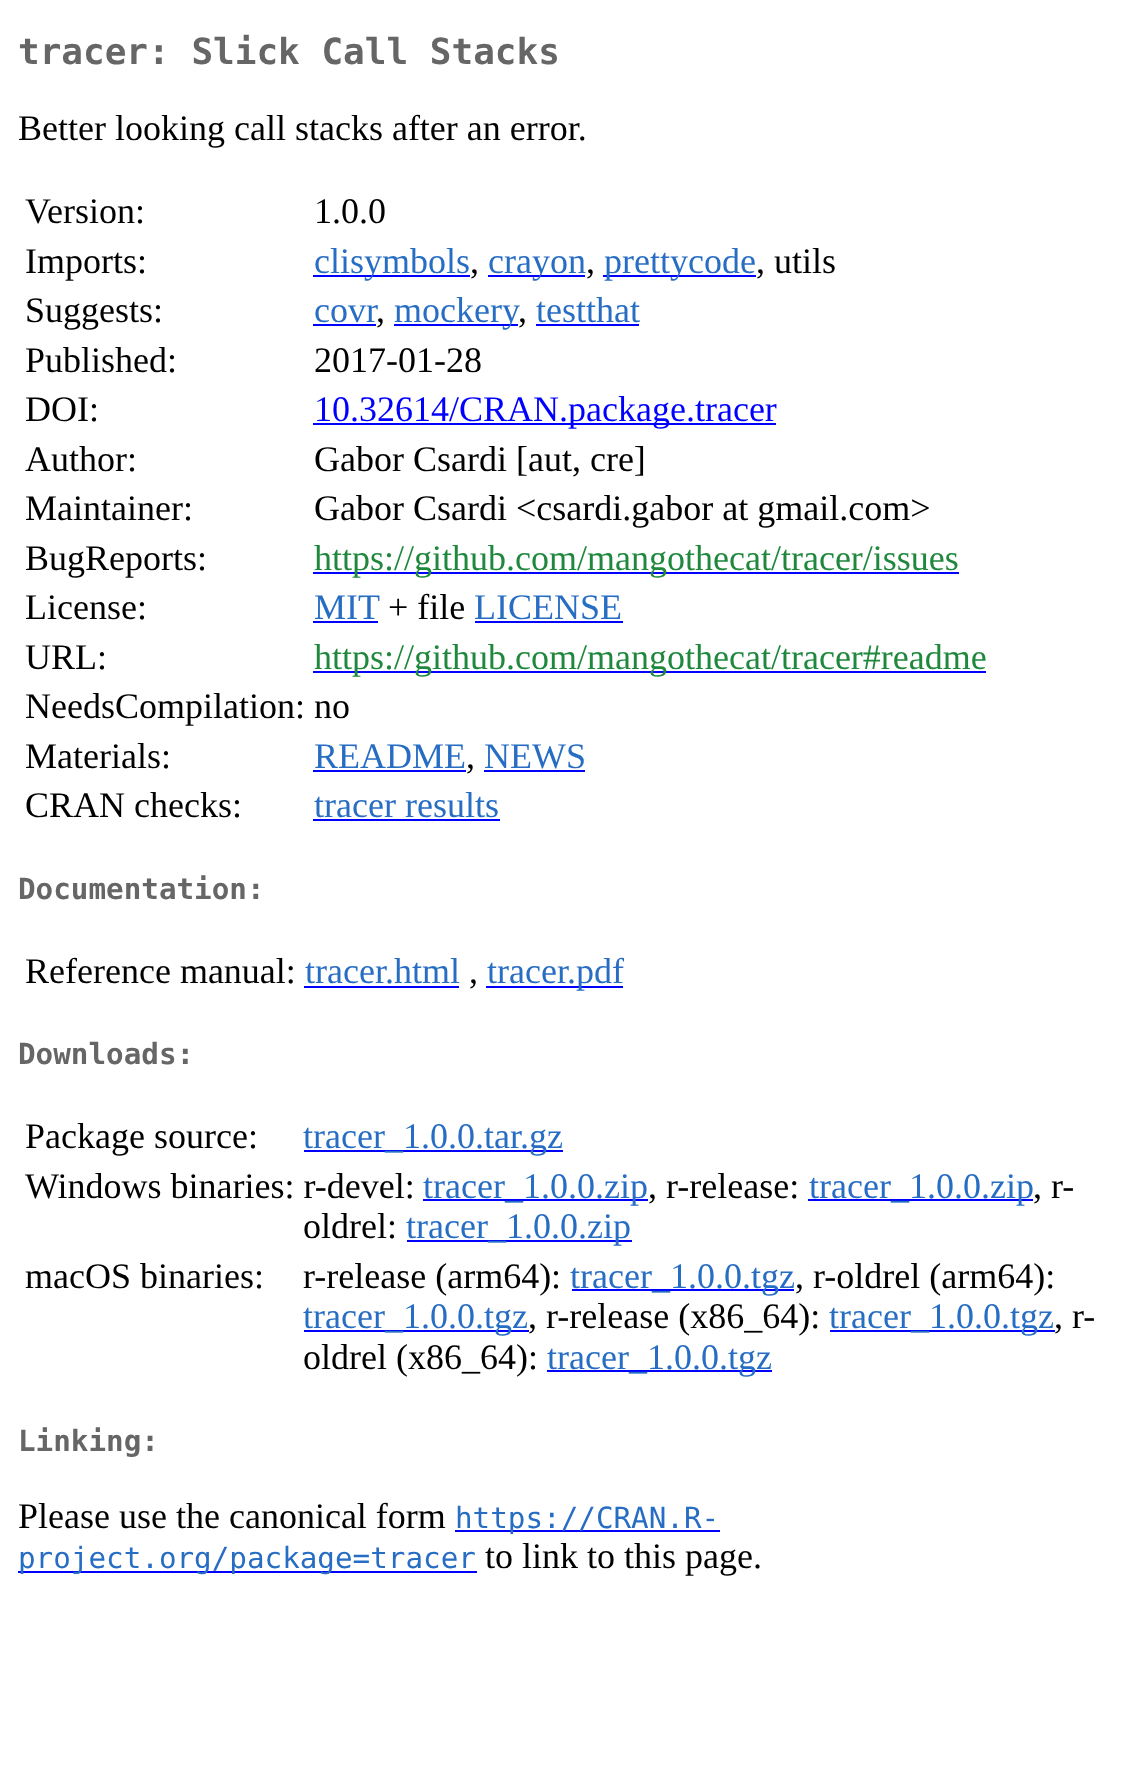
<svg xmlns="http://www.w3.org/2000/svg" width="1138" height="1771">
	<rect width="100%" height="100%" fill="#FFFFFF" />
	<text x="18" y="64" font-family="DejaVu Sans Mono" font-size="36" font-weight="700" fill="#666666">tracer: Slick Call Stacks</text>
	<g font-family="Liberation Serif" font-size="36" fill="#000000">
		<text x="18" y="140">Better looking call stacks after an error.</text>
		<text x="25" y="223">Version:</text>
		<text x="314" y="223">1.0.0</text>
		<text x="25" y="273">Imports:</text>
	</g>
	<rect x="313" y="275" width="157" height="2" fill="#0000FF" />
	<text x="314" y="273" font-family="Liberation Serif" font-size="36" fill="#276DC3">clisymbols</text>
	<text x="470" y="273" font-family="Liberation Serif" font-size="36" fill="#000000">,</text>
	<rect x="488" y="275" width="97" height="2" fill="#0000FF" />
	<text x="488" y="273" font-family="Liberation Serif" font-size="36" fill="#276DC3">crayon</text>
	<text x="586" y="273" font-family="Liberation Serif" font-size="36" fill="#000000">,</text>
	<rect x="603" y="275" width="153" height="2" fill="#0000FF" />
	<text x="604" y="273" font-family="Liberation Serif" font-size="36" fill="#276DC3">prettycode</text>
	<g font-family="Liberation Serif" font-size="36" fill="#000000">
		<text x="756" y="273">, utils</text>
		<text x="25" y="322">Suggests:</text>
	</g>
	<text x="314" y="322" font-family="Liberation Serif" font-size="36" fill="#276DC3">covr</text>
	<rect x="313" y="324" width="63" height="2" fill="#0000FF" />
	<text x="376" y="322" font-family="Liberation Serif" font-size="36" fill="#000000">,</text>
	<rect x="394" y="324" width="124" height="2" fill="#0000FF" />
	<text x="394" y="322" font-family="Liberation Serif" font-size="36" fill="#276DC3">mockery</text>
	<text x="518" y="322" font-family="Liberation Serif" font-size="36" fill="#000000">,</text>
	<text x="536" y="322" font-family="Liberation Serif" font-size="36" fill="#276DC3">testthat</text>
	<rect x="536" y="324" width="103" height="2" fill="#0000FF" />
	<g font-family="Liberation Serif" font-size="36" fill="#000000">
		<text x="25" y="372">Published:</text>
		<text x="314" y="372">2017-01-28</text>
		<text x="25" y="421">DOI:</text>
	</g>
	<rect x="313" y="423" width="463" height="2" fill="#0000FF" />
	<text x="314" y="421" font-family="Liberation Serif" font-size="36" fill="#0000FF">10.32614/CRAN.package.tracer</text>
	<g font-family="Liberation Serif" font-size="36" fill="#000000">
		<text x="25" y="471">Author:</text>
		<text x="314" y="471">Gabor Csardi [aut, cre]</text>
		<text x="25" y="520">Maintainer:</text>
		<text x="314" y="520">Gabor Csardi &lt;csardi.gabor at gmail.com&gt;</text>
		<text x="25" y="570">BugReports:</text>
	</g>
	<rect x="313" y="572" width="646" height="2" fill="#0000FF" />
	<text x="314" y="570" font-family="Liberation Serif" font-size="36" fill="#1F883D">https://github.com/mangothecat/tracer/issues</text>
	<text x="25" y="619" font-family="Liberation Serif" font-size="36" fill="#000000">License:</text>
	<text x="314" y="619" font-family="Liberation Serif" font-size="36" fill="#276DC3">MIT</text>
	<rect x="313" y="621" width="65" height="2" fill="#0000FF" />
	<text x="388" y="619" font-family="Liberation Serif" font-size="36" fill="#000000">+ file</text>
	<text x="474" y="619" font-family="Liberation Serif" font-size="36" fill="#276DC3">LICENSE</text>
	<rect x="475" y="621" width="148" height="2" fill="#0000FF" />
	<text x="25" y="669" font-family="Liberation Serif" font-size="36" fill="#000000">URL:</text>
	<rect x="313" y="671" width="673" height="2" fill="#0000FF" />
	<text x="314" y="669" font-family="Liberation Serif" font-size="36" fill="#1F883D">https://github.com/mangothecat/tracer#readme</text>
	<g font-family="Liberation Serif" font-size="36" fill="#000000">
		<text x="25" y="718">NeedsCompilation: no</text>
		<text x="25" y="768">Materials:</text>
	</g>
	<text x="314" y="768" font-family="Liberation Serif" font-size="36" fill="#276DC3">README</text>
	<rect x="313" y="770" width="153" height="2" fill="#0000FF" />
	<text x="466" y="768" font-family="Liberation Serif" font-size="36" fill="#000000">,</text>
	<text x="484" y="768" font-family="Liberation Serif" font-size="36" fill="#276DC3">NEWS</text>
	<rect x="484" y="770" width="101" height="2" fill="#0000FF" />
	<text x="25" y="817" font-family="Liberation Serif" font-size="36" fill="#000000">CRAN checks:</text>
	<text x="314" y="817" font-family="Liberation Serif" font-size="36" fill="#276DC3">tracer results</text>
	<rect x="313" y="819" width="187" height="2" fill="#0000FF" />
	<text x="18" y="899" font-family="DejaVu Sans Mono" font-size="29.25" font-weight="700" fill="#666666">Documentation:</text>
	<text x="25" y="983" font-family="Liberation Serif" font-size="36" fill="#000000">Reference manual:</text>
	<text x="305" y="983" font-family="Liberation Serif" font-size="36" fill="#276DC3">tracer.html</text>
	<rect x="304" y="986" width="155" height="2" fill="#0000FF" />
	<text x="469" y="983" font-family="Liberation Serif" font-size="36" fill="#000000">,</text>
	<rect x="486" y="986" width="137" height="2" fill="#0000FF" />
	<text x="487" y="983" font-family="Liberation Serif" font-size="36" fill="#276DC3">tracer.pdf</text>
	<text x="18" y="1064" font-family="DejaVu Sans Mono" font-size="29.25" font-weight="700" fill="#666666">Downloads:</text>
	<text x="25" y="1148" font-family="Liberation Serif" font-size="36" fill="#000000">Package source:</text>
	<rect x="304" y="1150" width="259" height="2" fill="#0000FF" />
	<text x="303" y="1148" font-family="Liberation Serif" font-size="36" fill="#276DC3">tracer_1.0.0.tar.gz</text>
	<text x="25" y="1198" font-family="Liberation Serif" font-size="36" fill="#000000">Windows binaries: r-devel:</text>
	<rect x="423" y="1199" width="225" height="2" fill="#0000FF" />
	<text x="423" y="1198" font-family="Liberation Serif" font-size="36" fill="#276DC3">tracer_1.0.0.zip</text>
	<text x="648" y="1198" font-family="Liberation Serif" font-size="36" fill="#000000">, r-release:</text>
	<rect x="808" y="1199" width="225" height="2" fill="#0000FF" />
	<text x="809" y="1198" font-family="Liberation Serif" font-size="36" fill="#276DC3">tracer_1.0.0.zip</text>
	<g font-family="Liberation Serif" font-size="36" fill="#000000">
		<text x="1033" y="1198">, r-</text>
		<text x="303" y="1238">oldrel:</text>
	</g>
	<rect x="407" y="1240" width="225" height="2" fill="#0000FF" />
	<text x="406" y="1238" font-family="Liberation Serif" font-size="36" fill="#276DC3">tracer_1.0.0.zip</text>
	<g font-family="Liberation Serif" font-size="36" fill="#000000">
		<text x="25" y="1288">macOS binaries:</text>
		<text x="303" y="1288">r-release (arm64):</text>
	</g>
	<rect x="572" y="1289" width="222" height="2" fill="#0000FF" />
	<text x="570" y="1288" font-family="Liberation Serif" font-size="36" fill="#276DC3">tracer_1.0.0.tgz</text>
	<text x="795" y="1288" font-family="Liberation Serif" font-size="36" fill="#000000">, r-oldrel (arm64):</text>
	<rect x="304" y="1330" width="225" height="2" fill="#0000FF" />
	<text x="303" y="1328" font-family="Liberation Serif" font-size="36" fill="#276DC3">tracer_1.0.0.tgz</text>
	<text x="528" y="1328" font-family="Liberation Serif" font-size="36" fill="#000000">, r-release (x86_64):</text>
	<rect x="830" y="1330" width="225" height="2" fill="#0000FF" />
	<text x="829" y="1328" font-family="Liberation Serif" font-size="36" fill="#276DC3">tracer_1.0.0.tgz</text>
	<g font-family="Liberation Serif" font-size="36" fill="#000000">
		<text x="1054" y="1328">, r-</text>
		<text x="303" y="1369">oldrel (x86_64):</text>
	</g>
	<rect x="547" y="1370" width="225" height="2" fill="#0000FF" />
	<text x="547" y="1369" font-family="Liberation Serif" font-size="36" fill="#276DC3">tracer_1.0.0.tgz</text>
	<text x="18" y="1451" font-family="DejaVu Sans Mono" font-size="29.25" font-weight="700" fill="#666666">Linking:</text>
	<text x="18" y="1528" font-family="Liberation Serif" font-size="36" fill="#000000">Please use the canonical form</text>
	<rect x="455" y="1530" width="265" height="2" fill="#0000FF" />
	<text x="455" y="1528" font-family="DejaVu Sans Mono" font-size="29.25" fill="#276DC3">https://CRAN.R-</text>
	<rect x="18" y="1571" width="459" height="2" fill="#0000FF" />
	<text x="18" y="1568" font-family="DejaVu Sans Mono" font-size="29.25" fill="#276DC3">project.org/package=tracer</text>
	<text x="485" y="1568" font-family="Liberation Serif" font-size="36" fill="#000000">to link to this page.</text>
</svg>
